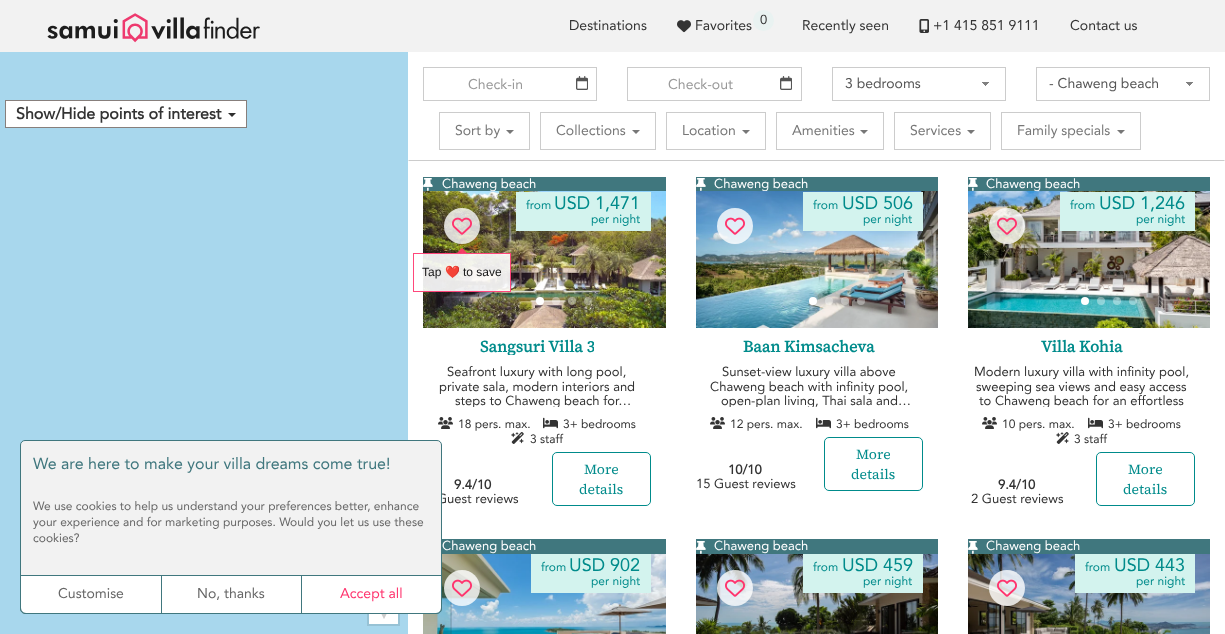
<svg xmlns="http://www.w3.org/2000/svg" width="1225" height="634">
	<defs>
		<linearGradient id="g1" gradientUnits="userSpaceOnUse" x1="985" y1="82" x2="990" y2="86"><stop offset="0.5" stop-color="#808080" /><stop offset="0.5" stop-color="#FFFFFF" /></linearGradient>
		<linearGradient id="g2" gradientUnits="userSpaceOnUse" x1="981" y1="86" x2="985" y2="82"><stop offset="0.5" stop-color="#FFFFFF" /><stop offset="0.5" stop-color="#808080" /></linearGradient>
		<linearGradient id="g3" gradientUnits="userSpaceOnUse" x1="1189" y1="82" x2="1194" y2="86"><stop offset="0.5" stop-color="#808080" /><stop offset="0.5" stop-color="#FFFFFF" /></linearGradient>
		<linearGradient id="g4" gradientUnits="userSpaceOnUse" x1="1185" y1="86" x2="1189" y2="82"><stop offset="0.5" stop-color="#FFFFFF" /><stop offset="0.5" stop-color="#808080" /></linearGradient>
		<clipPath id="clip1"><rect x="480" y="338" width="114" height="17" /></clipPath>
		<clipPath id="clip2"><rect x="428" y="365" width="218" height="42" /></clipPath>
		<clipPath id="clip3"><rect x="701" y="365" width="217" height="42" /></clipPath>
		<clipPath id="clip4"><rect x="973" y="365" width="217" height="42" /></clipPath>
	</defs>
	<rect width="100%" height="100%" fill="#FFFFFF" />
	<rect x="0" y="0" width="1225" height="52" fill="#F2F2F2" />
	<image x="47" y="13" width="213" height="30" href="assets/img1.png" />
	<text x="569" y="30" font-family="Avenir" font-size="14" fill="#333333">Destinations</text>
	<image x="677" y="20" width="14" height="13" href="assets/img2.png" />
	<text x="695" y="30" font-family="Avenir" font-size="14" fill="#333333">Favorites</text>
	<circle cx="763.5" cy="20.5" r="10.5" fill="#E9F2F1" />
	<text x="760" y="24" font-family="Avenir" font-size="13" fill="#333333">0</text>
	<text x="802" y="30" font-family="Avenir" font-size="14" fill="#333333">Recently seen</text>
	<image x="919" y="19" width="10" height="14" href="assets/img3.png" />
	<g font-family="Avenir" font-size="14" fill="#333333">
		<text x="933" y="30">+1 415 851 9111</text>
		<text x="1070" y="30">Contact us</text>
	</g>
	<rect x="0" y="52" width="408" height="582" fill="#A8D7ED" />
	<rect x="368" y="536" width="31" height="89" fill="none" stroke="#97C2D5" stroke-width="2" />
	<rect x="369" y="614" width="29" height="10" fill="#FFFFFF" />
	<image x="381" y="614" width="6" height="5" href="assets/img4.png" />
	<rect x="5.5" y="100.5" width="241" height="27" fill="#FFFFFF" stroke="#877F7C" />
	<text x="16" y="119" font-family="Avenir" font-size="16" font-weight="700" fill="#333333">Show/Hide points of interest</text>
	<path d="M228 113H236L232 117Z" fill="#2E2E2E" />
	<rect x="423" y="67" width="174" height="1" fill="#CCCCCC" />
	<rect x="596" y="67" width="1" height="34" fill="#CCCCCC" />
	<rect x="423" y="100" width="174" height="1" fill="#CCCCCC" />
	<image x="576" y="76" width="12" height="14" href="assets/img5.png" />
	<rect x="423" y="67" width="1" height="34" fill="#CCCCCC" />
	<text x="468" y="89" font-family="Avenir" font-size="14" fill="#999999">Check-in</text>
	<rect x="627" y="67" width="175" height="1" fill="#CCCCCC" />
	<rect x="801" y="67" width="1" height="34" fill="#CCCCCC" />
	<rect x="627" y="100" width="175" height="1" fill="#CCCCCC" />
	<image x="780" y="76" width="12" height="14" href="assets/img5.png" />
	<rect x="627" y="67" width="1" height="34" fill="#CCCCCC" />
	<text x="668" y="89" font-family="Avenir" font-size="14" fill="#999999">Check-out</text>
	<rect x="985" y="82" width="5" height="4" fill="url(#g1)" />
	<rect x="981" y="82" width="4" height="4" fill="url(#g2)" />
	<rect x="832.5" y="67.5" width="173" height="33" fill="none" stroke="#CCCCCC" />
	<text x="845" y="88" font-family="Avenir" font-size="14" fill="#555555">3 bedrooms</text>
	<rect x="1189" y="82" width="5" height="4" fill="url(#g3)" />
	<rect x="1185" y="82" width="4" height="4" fill="url(#g4)" />
	<rect x="1036.5" y="67.5" width="173" height="33" fill="none" stroke="#CCCCCC" />
	<text x="1049" y="88" font-family="Avenir" font-size="14" fill="#555555">- Chaweng beach</text>
	<path d="M1225 161H408L409 160H1224Z" fill="#CCCCCC" />
	<rect x="439.5" y="112.5" width="90" height="37" fill="none" stroke="#CCCCCC" />
	<text x="455" y="135" font-family="Avenir" font-size="14" fill="#777777">Sort by</text>
	<path d="M506 130H514L510 134Z" fill="#777777" />
	<rect x="540.5" y="112.5" width="115" height="37" fill="none" stroke="#CCCCCC" />
	<text x="556" y="135" font-family="Avenir" font-size="14" fill="#777777">Collections</text>
	<path d="M632 130H640L636 134Z" fill="#777777" />
	<rect x="666.5" y="112.5" width="99" height="37" fill="none" stroke="#CCCCCC" />
	<text x="682" y="135" font-family="Avenir" font-size="14" fill="#777777">Location</text>
	<path d="M742 130H750L746 134Z" fill="#777777" />
	<rect x="776.5" y="112.5" width="107" height="37" fill="none" stroke="#CCCCCC" />
	<text x="792" y="135" font-family="Avenir" font-size="14" fill="#777777">Amenities</text>
	<path d="M860 130H868L864 134Z" fill="#777777" />
	<rect x="894.5" y="112.5" width="96" height="37" fill="none" stroke="#CCCCCC" />
	<text x="910" y="135" font-family="Avenir" font-size="14" fill="#777777">Services</text>
	<path d="M967 130H975L971 134Z" fill="#777777" />
	<rect x="1001.5" y="112.5" width="139" height="37" fill="none" stroke="#CCCCCC" />
	<text x="1017" y="135" font-family="Avenir" font-size="14" fill="#777777">Family specials</text>
	<path d="M1117 130H1125L1121 134Z" fill="#777777" />
	<rect x="423" y="177" width="243" height="14" fill="#40777E" />
	<image x="423" y="178" width="10" height="13" href="assets/img6.png" />
	<text x="442" y="188" font-family="Avenir" font-size="13" fill="#FFFFFF">Chaweng beach</text>
	<image x="423" y="191" width="243" height="137" href="assets/img8.png" />
	<circle cx="462" cy="226" r="18" fill="#FFFFFF" fill-opacity="0.8" />
	<image x="452" y="217" width="20" height="18" href="assets/img7.png" />
	<rect x="516" y="192" width="135" height="39" fill="#D3F3EE" />
	<text x="526" y="209" font-family="Avenir" font-size="12" fill="#008B8B">from</text>
	<text x="554" y="209" font-family="Avenir" font-size="18" fill="#008B8B">USD 1,471</text>
	<text x="591" y="223" font-family="Avenir" font-size="12" fill="#008B8B">per night</text>
	<path d="M467 253H457L462 248Z" fill="#FF336D" fill-opacity="0.9" />
	<rect x="423" y="253" width="88" height="39" fill="#FFFFFF" fill-opacity="0.9" />
	<rect x="413.5" y="253.5" width="97" height="38" fill="none" stroke="#FF336D" stroke-opacity="0.9" />
	<text x="422" y="276" font-family="Liberation Sans" font-size="12" fill="#171717">Tap</text>
	<text x="445" y="276" font-family="Noto Color Emoji" font-size="12" fill="#171717">❤️</text>
	<text x="463" y="276" font-family="Liberation Sans" font-size="12" fill="#171717">to save</text>
	<circle cx="540" cy="301" r="4" fill="#FFFFFF" />
	<circle cx="556" cy="301" r="4" fill="#FFFFFF" fill-opacity="0.36" />
	<circle cx="572" cy="301" r="4" fill="#FFFFFF" fill-opacity="0.36" />
	<circle cx="588" cy="301" r="4" fill="#FFFFFF" fill-opacity="0.36" />
	<g clip-path="url(#clip1)">
		<text x="480" y="352" font-family="'Source Serif 4'" font-size="16" font-weight="700" fill="#008B8B">Sangsuri Villa 3</text>
	</g>
	<g font-family="Avenir" font-size="13" fill="#333333">
		<text x="447" y="376">Seafront luxury with long pool,</text>
		<text x="439" y="391">private sala, modern interiors and</text>
	</g>
	<g clip-path="url(#clip2)">
		<text x="455" y="405" font-family="Avenir" font-size="13" fill="#333333">steps to Chaweng beach for…</text>
	</g>
	<image x="438" y="417" width="15" height="12" href="assets/img9.png" />
	<text x="458" y="428" font-family="Avenir" font-size="12" fill="#333333">18 pers. max.</text>
	<image x="543" y="417" width="15" height="12" href="assets/img10.png" />
	<text x="563" y="428" font-family="Avenir" font-size="12" fill="#333333">3+ bedrooms</text>
	<image x="511" y="432" width="13" height="12" href="assets/img11.png" />
	<text x="530" y="443" font-family="Avenir" font-size="12" fill="#333333">3 staff</text>
	<text x="454" y="489" font-family="Avenir" font-size="13" font-weight="700" fill="#333333">9.4/10</text>
	<text x="437" y="503" font-family="Avenir" font-size="13" fill="#333333">Guest reviews</text>
	<rect x="552.5" y="452.5" width="98" height="53" rx="4.5" fill="none" stroke="#008B8B" />
	<g font-family="'Source Serif 4'" font-size="14" fill="#008B8B">
		<text x="584" y="474">More</text>
		<text x="579" y="494">details</text>
	</g>
	<rect x="696" y="177" width="242" height="14" fill="#40777E" />
	<image x="696" y="178" width="10" height="13" href="assets/img6.png" />
	<text x="714" y="188" font-family="Avenir" font-size="13" fill="#FFFFFF">Chaweng beach</text>
	<image x="696" y="191" width="242" height="137" href="assets/img13.png" />
	<circle cx="735" cy="226" r="18" fill="#FFFFFF" fill-opacity="0.8" />
	<image x="725" y="217" width="20" height="18" href="assets/img12.png" />
	<rect x="803" y="192" width="120" height="39" fill="#D3F3EE" />
	<text x="813" y="209" font-family="Avenir" font-size="12" fill="#008B8B">from</text>
	<text x="842" y="209" font-family="Avenir" font-size="18" fill="#008B8B">USD 506</text>
	<text x="863" y="223" font-family="Avenir" font-size="12" fill="#008B8B">per night</text>
	<circle cx="813" cy="301" r="4" fill="#FFFFFF" />
	<circle cx="829" cy="301" r="4" fill="#FFFFFF" fill-opacity="0.36" />
	<circle cx="845" cy="301" r="4" fill="#FFFFFF" fill-opacity="0.36" />
	<circle cx="861" cy="301" r="4" fill="#FFFFFF" fill-opacity="0.36" />
	<text x="743" y="352" font-family="'Source Serif 4'" font-size="16" font-weight="700" fill="#008B8B">Baan Kimsacheva</text>
	<g font-family="Avenir" font-size="13" fill="#333333">
		<text x="722" y="376">Sunset-view luxury villa above</text>
		<text x="710" y="391">Chaweng beach with infinity pool,</text>
	</g>
	<g clip-path="url(#clip3)">
		<text x="721" y="405" font-family="Avenir" font-size="13" fill="#333333">open-plan living, Thai sala and…</text>
	</g>
	<image x="710" y="417" width="15" height="12" href="assets/img9.png" />
	<text x="730" y="428" font-family="Avenir" font-size="12" fill="#333333">12 pers. max.</text>
	<image x="816" y="417" width="15" height="12" href="assets/img10.png" />
	<text x="836" y="428" font-family="Avenir" font-size="12" fill="#333333">3+ bedrooms</text>
	<text x="728" y="474" font-family="Avenir" font-size="13" font-weight="700" fill="#333333">10/10</text>
	<text x="696" y="488" font-family="Avenir" font-size="13" fill="#333333">15 Guest reviews</text>
	<rect x="824.5" y="437.5" width="98" height="53" rx="4.5" fill="none" stroke="#008B8B" />
	<g font-family="'Source Serif 4'" font-size="14" fill="#008B8B">
		<text x="856" y="459">More</text>
		<text x="851" y="479">details</text>
	</g>
	<rect x="968" y="177" width="242" height="14" fill="#40777E" />
	<image x="968" y="178" width="10" height="13" href="assets/img6.png" />
	<text x="986" y="188" font-family="Avenir" font-size="13" fill="#FFFFFF">Chaweng beach</text>
	<image x="968" y="191" width="242" height="137" href="assets/img15.png" />
	<circle cx="1007" cy="226" r="18" fill="#FFFFFF" fill-opacity="0.8" />
	<image x="997" y="217" width="20" height="18" href="assets/img14.png" />
	<rect x="1060" y="192" width="135" height="39" fill="#D3F3EE" />
	<text x="1070" y="209" font-family="Avenir" font-size="12" fill="#008B8B">from</text>
	<text x="1099" y="209" font-family="Avenir" font-size="18" fill="#008B8B">USD 1,246</text>
	<text x="1136" y="223" font-family="Avenir" font-size="12" fill="#008B8B">per night</text>
	<circle cx="1085" cy="301" r="4" fill="#FFFFFF" />
	<circle cx="1101" cy="301" r="4" fill="#FFFFFF" fill-opacity="0.36" />
	<circle cx="1117" cy="301" r="4" fill="#FFFFFF" fill-opacity="0.36" />
	<circle cx="1133" cy="301" r="4" fill="#FFFFFF" fill-opacity="0.36" />
	<text x="1041" y="352" font-family="'Source Serif 4'" font-size="16" font-weight="700" fill="#008B8B">Villa Kohia</text>
	<g font-family="Avenir" font-size="13" fill="#333333">
		<text x="974" y="376">Modern luxury villa with infinity pool,</text>
		<text x="976" y="391">sweeping sea views and easy access</text>
	</g>
	<g clip-path="url(#clip4)">
		<text x="979" y="405" font-family="Avenir" font-size="13" fill="#333333">to Chaweng beach for an effortless</text>
	</g>
	<image x="982" y="417" width="15" height="12" href="assets/img9.png" />
	<text x="1002" y="428" font-family="Avenir" font-size="12" fill="#333333">10 pers. max.</text>
	<image x="1088" y="417" width="15" height="12" href="assets/img10.png" />
	<text x="1108" y="428" font-family="Avenir" font-size="12" fill="#333333">3+ bedrooms</text>
	<image x="1056" y="432" width="13" height="12" href="assets/img11.png" />
	<text x="1074" y="443" font-family="Avenir" font-size="12" fill="#333333">3 staff</text>
	<text x="998" y="489" font-family="Avenir" font-size="13" font-weight="700" fill="#333333">9.4/10</text>
	<text x="971" y="503" font-family="Avenir" font-size="13" fill="#333333">2 Guest reviews</text>
	<rect x="1096.5" y="452.5" width="98" height="53" rx="4.5" fill="none" stroke="#008B8B" />
	<g font-family="'Source Serif 4'" font-size="14" fill="#008B8B">
		<text x="1128" y="474">More</text>
		<text x="1123" y="494">details</text>
	</g>
	<rect x="442" y="539" width="224" height="15" fill="#40777E" />
	<text x="442" y="550" font-family="Avenir" font-size="13" fill="#FFFFFF">Chaweng beach</text>
	<image x="423" y="554" width="243" height="80" href="assets/img17.png" />
	<circle cx="462" cy="588" r="18" fill="#FFFFFF" fill-opacity="0.8" />
	<image x="452" y="579" width="20" height="18" href="assets/img16.png" />
	<rect x="531" y="554" width="120" height="39" fill="#D3F3EE" />
	<text x="541" y="571" font-family="Avenir" font-size="12" fill="#008B8B">from</text>
	<text x="569" y="571" font-family="Avenir" font-size="18" fill="#008B8B">USD 902</text>
	<text x="591" y="585" font-family="Avenir" font-size="12" fill="#008B8B">per night</text>
	<rect x="696" y="539" width="242" height="15" fill="#40777E" />
	<image x="696" y="541" width="10" height="13" href="assets/img6.png" />
	<text x="714" y="550" font-family="Avenir" font-size="13" fill="#FFFFFF">Chaweng beach</text>
	<image x="696" y="554" width="242" height="80" href="assets/img19.png" />
	<circle cx="735" cy="588" r="18" fill="#FFFFFF" fill-opacity="0.8" />
	<image x="725" y="579" width="20" height="18" href="assets/img18.png" />
	<rect x="803" y="554" width="120" height="39" fill="#D3F3EE" />
	<text x="813" y="571" font-family="Avenir" font-size="12" fill="#008B8B">from</text>
	<text x="842" y="571" font-family="Avenir" font-size="18" fill="#008B8B">USD 459</text>
	<text x="863" y="585" font-family="Avenir" font-size="12" fill="#008B8B">per night</text>
	<rect x="968" y="539" width="242" height="15" fill="#40777E" />
	<image x="968" y="541" width="10" height="13" href="assets/img6.png" />
	<text x="986" y="550" font-family="Avenir" font-size="13" fill="#FFFFFF">Chaweng beach</text>
	<image x="968" y="554" width="242" height="80" href="assets/img21.png" />
	<circle cx="1007" cy="588" r="18" fill="#FFFFFF" fill-opacity="0.8" />
	<image x="997" y="579" width="20" height="18" href="assets/img20.png" />
	<rect x="1075" y="554" width="120" height="39" fill="#D3F3EE" />
	<text x="1085" y="571" font-family="Avenir" font-size="12" fill="#008B8B">from</text>
	<text x="1114" y="571" font-family="Avenir" font-size="18" fill="#008B8B">USD 443</text>
	<text x="1136" y="585" font-family="Avenir" font-size="12" fill="#008B8B">per night</text>
	<rect x="20.5" y="440.5" width="421" height="173" rx="4.5" fill="#F2F2F2" stroke="#40777E" />
	<text x="33" y="469" font-family="Avenir" font-size="16" fill="#40777E">We are here to make your villa dreams come true!</text>
	<g font-family="Avenir" font-size="12" fill="#666666">
		<text x="33" y="510">We use cookies to help us understand your preferences better, enhance</text>
		<text x="33" y="526">your experience and for marketing purposes. Would you let us use these</text>
		<text x="33" y="542">cookies?</text>
	</g>
	<path d="M301 576H441V608C441 611 439 613 436 613H301Z" fill="#FFFFFF" />
	<path d="M300.5 575.5H441.5V608C441.5 611 439 613.5 436 613.5H300.5Z" fill="none" stroke="#40777E" />
	<rect x="162" y="576" width="139" height="37" fill="#FFFFFF" />
	<rect x="160.5" y="575.5" width="141" height="38" fill="none" stroke="#40777E" />
	<path d="M21 576H161V613H26C23 613 21 611 21 608Z" fill="#FFFFFF" />
	<path d="M20.5 575.5H161.5V613.5H26C23 613.5 20.5 611 20.5 608Z" fill="none" stroke="#40777E" />
	<g font-family="Avenir" font-size="14" fill="#666666">
		<text x="58" y="598">Customise</text>
		<text x="197" y="598">No, thanks</text>
	</g>
	<text x="340" y="598" font-family="Avenir" font-size="14" fill="#FF336D">Accept all</text>
</svg>
